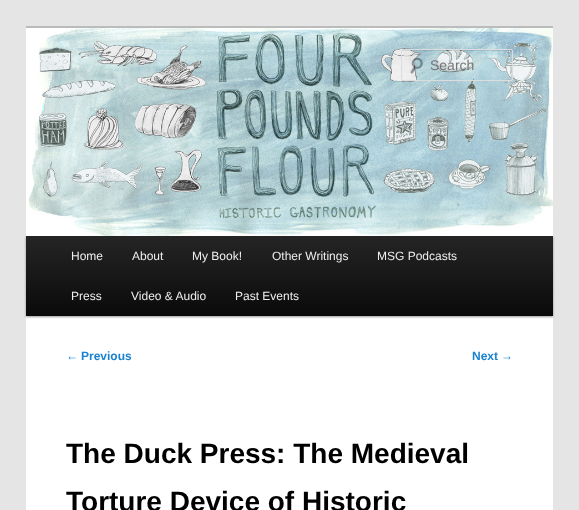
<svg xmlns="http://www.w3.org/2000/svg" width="579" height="510">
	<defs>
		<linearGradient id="g1" gradientUnits="userSpaceOnUse" x1="290" y1="236" x2="290" y2="316"><stop offset="0" stop-color="#252525" /><stop offset="1" stop-color="#0A0A0A" /></linearGradient>
	</defs>
	<rect width="100%" height="100%" fill="#E5E5E5" />
	<rect x="26" y="316" width="527" height="194" fill="#FFFFFF" />
	<rect x="26" y="26" width="527" height="2" fill="#BBBBBB" />
	<rect x="26" y="237" width="527" height="80" fill="#000000" fill-opacity="0.4" filter="blur(1px)" />
	<image x="26" y="28" width="527" height="208" href="assets/img1.png" />
	<image x="410" y="57" width="13" height="17" href="assets/img2.png" />
	<path d="M403 51H512V52L511 50H421C417 50 402 45 402 52C402 51 402 51 403 51Z" fill="#000000" fill-opacity="0.1" />
	<rect x="401.5" y="49.5" width="111" height="31" rx="1.5" fill="none" stroke="#DDDDDD" />
	<text x="430" y="70" font-family="Liberation Sans" font-size="14" fill="#757575">Search</text>
	<rect x="26" y="236" width="527" height="80" fill="url(#g1)" />
	<g font-family="Liberation Sans" font-size="12" fill="#EEEEEE">
		<text x="71" y="260">Home</text>
		<text x="132" y="260">About</text>
		<text x="192" y="260">My Book!</text>
		<text x="272" y="260">Other Writings</text>
		<text x="377" y="260">MSG Podcasts</text>
		<text x="71" y="300">Press</text>
		<text x="131" y="300">Video &amp; Audio</text>
		<text x="235" y="300">Past Events</text>
	</g>
	<text x="66" y="360" font-family="Liberation Sans" font-size="12" fill="#1982D1">←</text>
	<g font-family="Liberation Sans" font-size="12" font-weight="700" fill="#1982D1">
		<text x="81" y="360">Previous</text>
		<text x="472" y="360">Next</text>
	</g>
	<text x="501" y="360" font-family="Liberation Sans" font-size="12" fill="#1982D1">→</text>
	<g font-family="Liberation Sans" font-size="28" font-weight="700" fill="#000000">
		<text x="66" y="463">The Duck Press: The Medieval</text>
		<text x="66" y="511">Torture Device of Historic</text>
	</g>
</svg>
